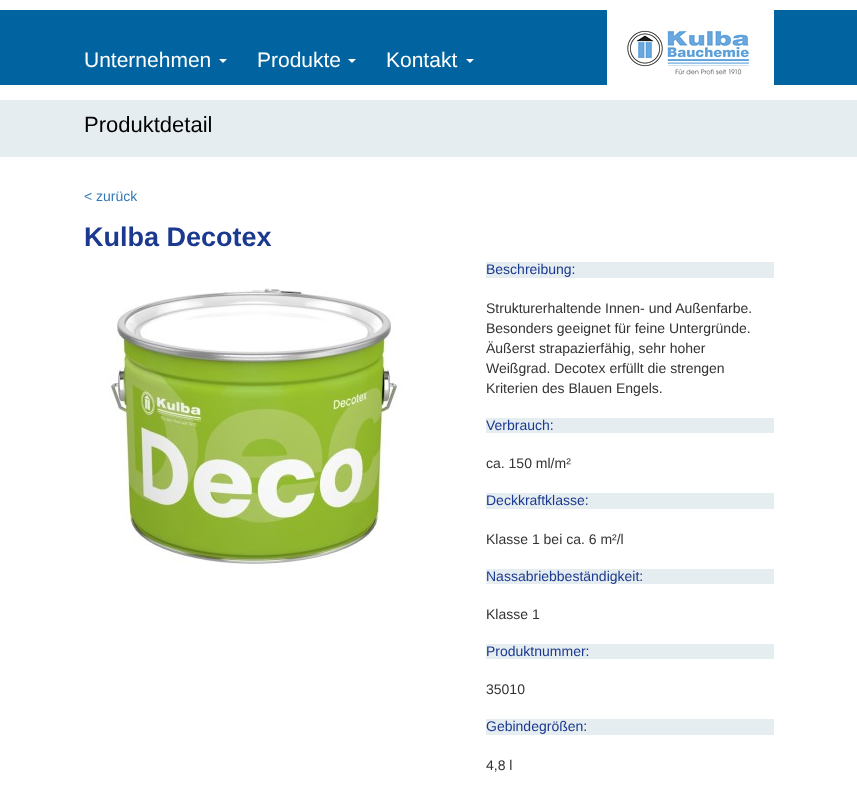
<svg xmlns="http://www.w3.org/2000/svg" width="857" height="785">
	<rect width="100%" height="100%" fill="#FFFFFF" />
	<rect x="0" y="10" width="857" height="75" fill="#0164A0" />
	<text x="84" y="67" font-family="Liberation Sans" font-size="21" fill="#FFFFFF">Unternehmen</text>
	<path d="M219 59H227L223 63Z" fill="#FFFFFF" />
	<text x="257" y="67" font-family="Liberation Sans" font-size="21" fill="#FFFFFF">Produkte</text>
	<path d="M348 59H356L352 63Z" fill="#FFFFFF" />
	<text x="386" y="67" font-family="Liberation Sans" font-size="21" fill="#FFFFFF">Kontakt</text>
	<path d="M466 59H474L470 63Z" fill="#FFFFFF" />
	<rect x="607" y="10" width="167" height="75" fill="#FFFFFF" />
	<image x="627" y="26" width="122" height="49" href="assets/img1.png" />
	<rect x="0" y="100" width="857" height="57" fill="#E6EDF1" />
	<text x="84" y="132" font-family="Liberation Sans" font-size="22" fill="#000000">Produktdetail</text>
	<text x="84" y="201" font-family="Liberation Sans" font-size="14" fill="#337AB7">&lt; zurück</text>
	<text x="84" y="246" font-family="Liberation Sans" font-size="27" font-weight="700" fill="#1B398F">Kulba Decotex</text>
	<image x="108" y="287" width="295" height="277" href="assets/img2.png" />
	<rect x="486" y="262" width="288" height="16" fill="#E6EDF1" />
	<text x="486" y="274" font-family="Liberation Sans" font-size="14" fill="#1B398F">Beschreibung:</text>
	<g font-family="Liberation Sans" font-size="14" fill="#333333">
		<text x="486" y="313">Strukturerhaltende Innen- und Außenfarbe.</text>
		<text x="486" y="333">Besonders geeignet für feine Untergründe.</text>
		<text x="486" y="353">Äußerst strapazierfähig, sehr hoher</text>
		<text x="486" y="373">Weißgrad. Decotex erfüllt die strengen</text>
		<text x="486" y="393">Kriterien des Blauen Engels.</text>
	</g>
	<rect x="486" y="418" width="288" height="15" fill="#E6EDF1" />
	<text x="486" y="430" font-family="Liberation Sans" font-size="14" fill="#1B398F">Verbrauch:</text>
	<text x="486" y="468" font-family="Liberation Sans" font-size="14" fill="#333333">ca. 150 ml/m²</text>
	<rect x="486" y="493" width="288" height="16" fill="#E6EDF1" />
	<text x="486" y="505" font-family="Liberation Sans" font-size="14" fill="#1B398F">Deckkraftklasse:</text>
	<text x="486" y="544" font-family="Liberation Sans" font-size="14" fill="#333333">Klasse 1 bei ca. 6 m²/l</text>
	<rect x="486" y="569" width="288" height="15" fill="#E6EDF1" />
	<text x="486" y="581" font-family="Liberation Sans" font-size="14" fill="#1B398F">Nassabriebbeständigkeit:</text>
	<text x="486" y="619" font-family="Liberation Sans" font-size="14" fill="#333333">Klasse 1</text>
	<rect x="486" y="644" width="288" height="15" fill="#E6EDF1" />
	<text x="486" y="656" font-family="Liberation Sans" font-size="14" fill="#1B398F">Produktnummer:</text>
	<text x="486" y="694" font-family="Liberation Sans" font-size="14" fill="#333333">35010</text>
	<rect x="486" y="719" width="288" height="16" fill="#E6EDF1" />
	<text x="486" y="731" font-family="Liberation Sans" font-size="14" fill="#1B398F">Gebindegrößen:</text>
	<text x="486" y="770" font-family="Liberation Sans" font-size="14" fill="#333333">4,8 l</text>
</svg>
